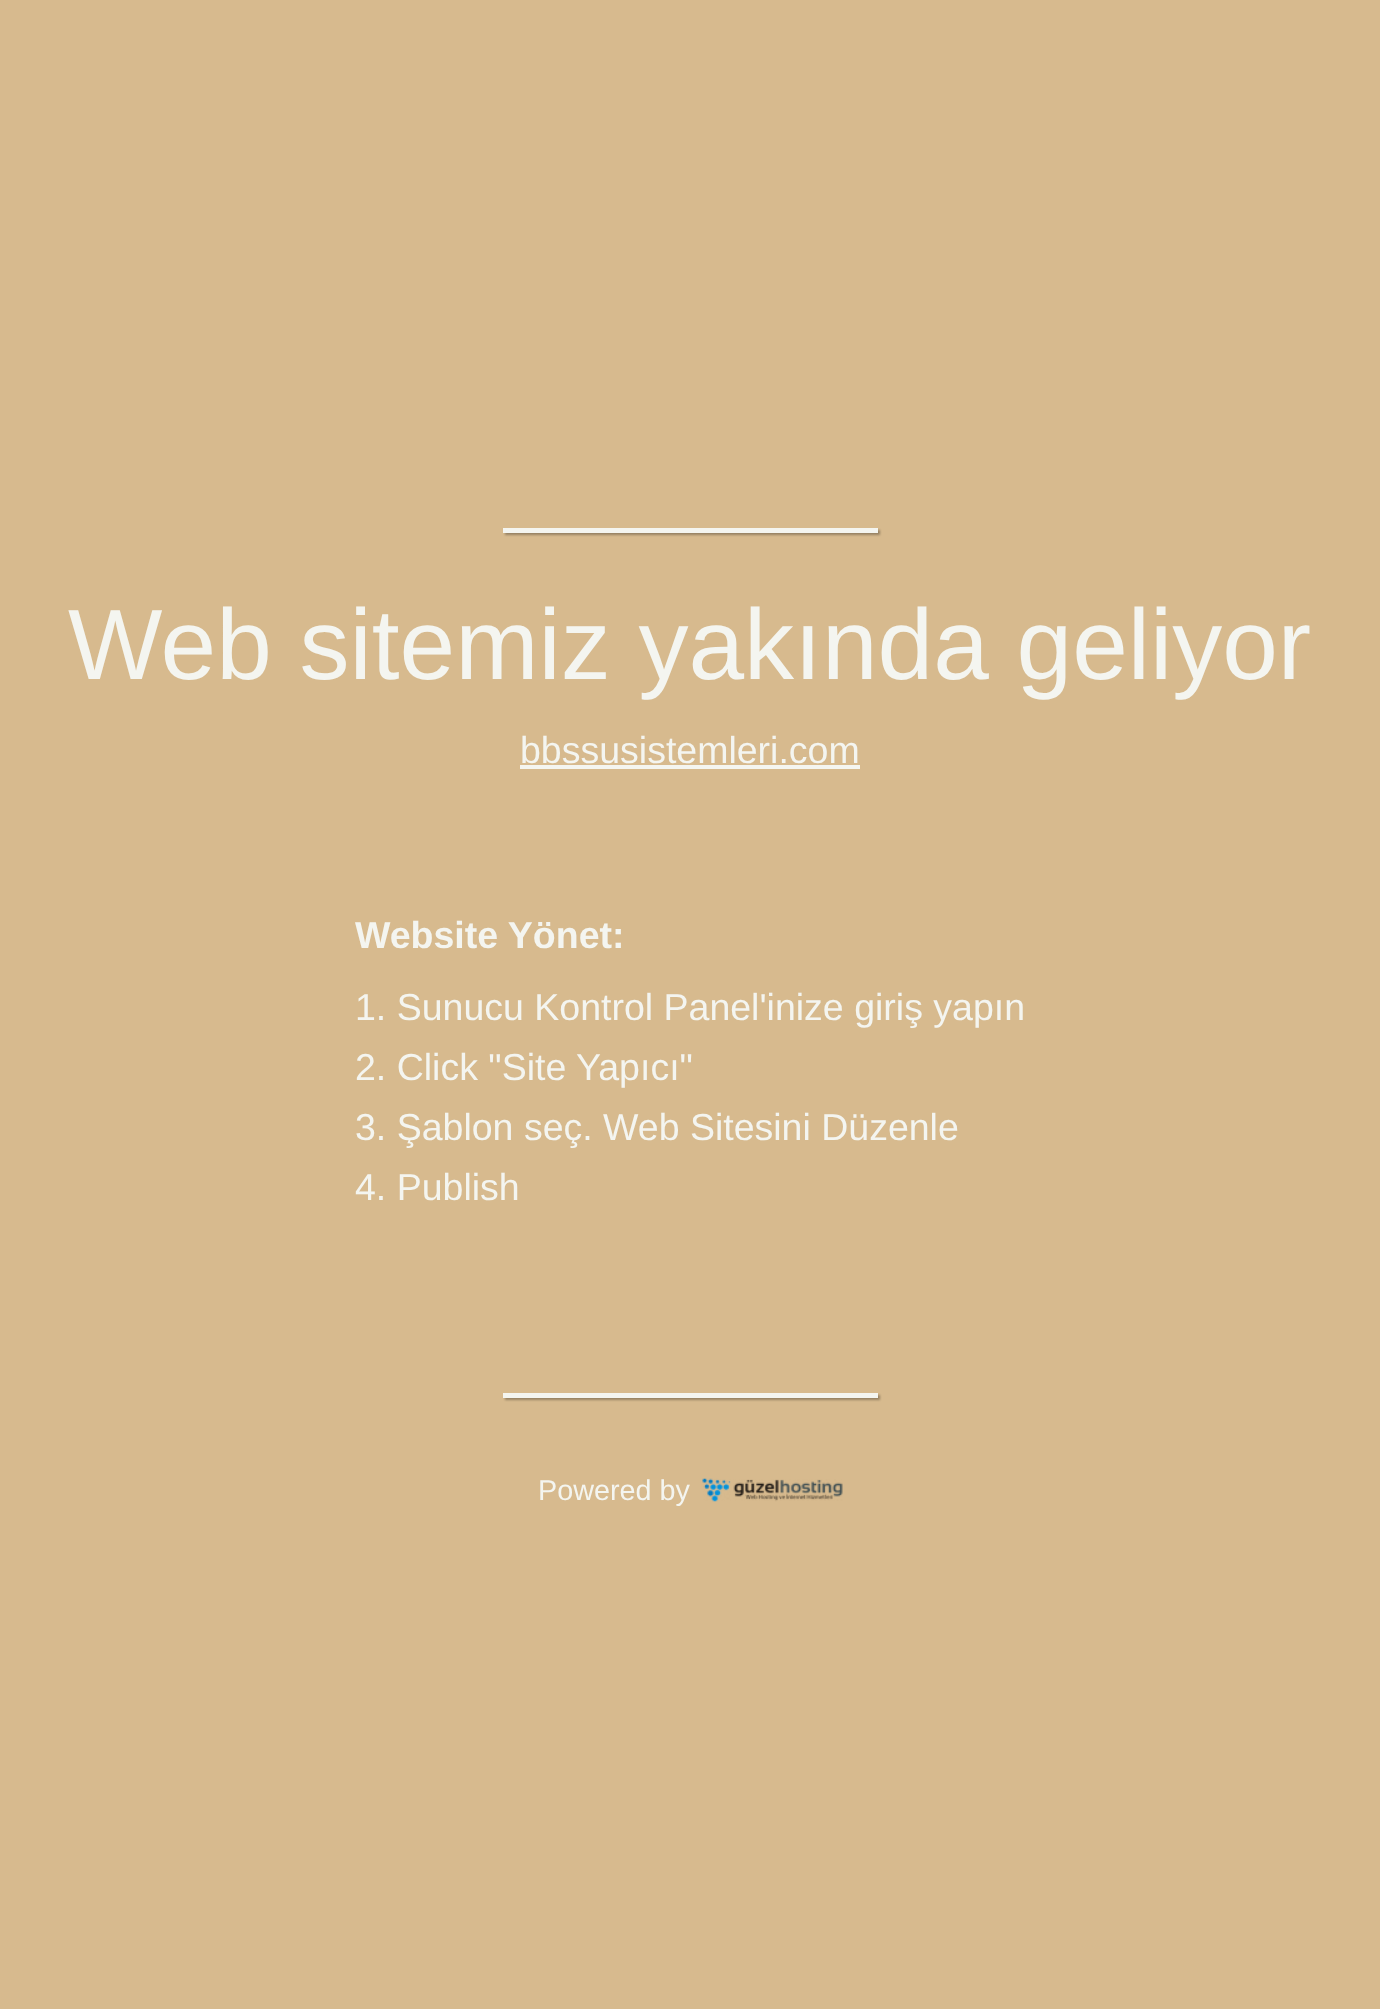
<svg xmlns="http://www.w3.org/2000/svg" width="1380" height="2009">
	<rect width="100%" height="100%" fill="#D7BA8E" />
	<rect x="505" y="530" width="375" height="5" fill="#000000" fill-opacity="0.3" filter="blur(1px)" />
	<rect x="503" y="528" width="375" height="5" fill="#F4F5F0" />
	<text x="68" y="679" font-family="Liberation Sans" font-size="100" fill="#F4F5F0">Web sitemiz yakında geliyor</text>
	<text x="520" y="763" font-family="Liberation Sans" font-size="37.5" fill="#F4F5F0">bbssusistemleri.com</text>
	<rect x="520" y="765" width="340" height="4" fill="#F4F5F0" />
	<text x="355" y="948" font-family="Liberation Sans" font-size="37.5" font-weight="700" fill="#F4F5F0">Website Yönet:</text>
	<g font-family="Liberation Sans" font-size="37.5" fill="#F4F5F0">
		<text x="355" y="1020">1. Sunucu Kontrol Panel'inize giriş yapın</text>
		<text x="355" y="1080">2. Click "Site Yapıcı"</text>
		<text x="355" y="1140">3. Şablon seç. Web Sitesini Düzenle</text>
		<text x="355" y="1200">4. Publish</text>
	</g>
	<rect x="505" y="1395" width="375" height="5" fill="#000000" fill-opacity="0.3" filter="blur(1px)" />
	<rect x="503" y="1393" width="375" height="5" fill="#F4F5F0" />
	<text x="538" y="1500" font-family="Liberation Sans" font-size="28.75" fill="#F4F5F0">Powered by</text>
	<image x="702" y="1478" width="141" height="24" href="assets/img1.png" />
</svg>
